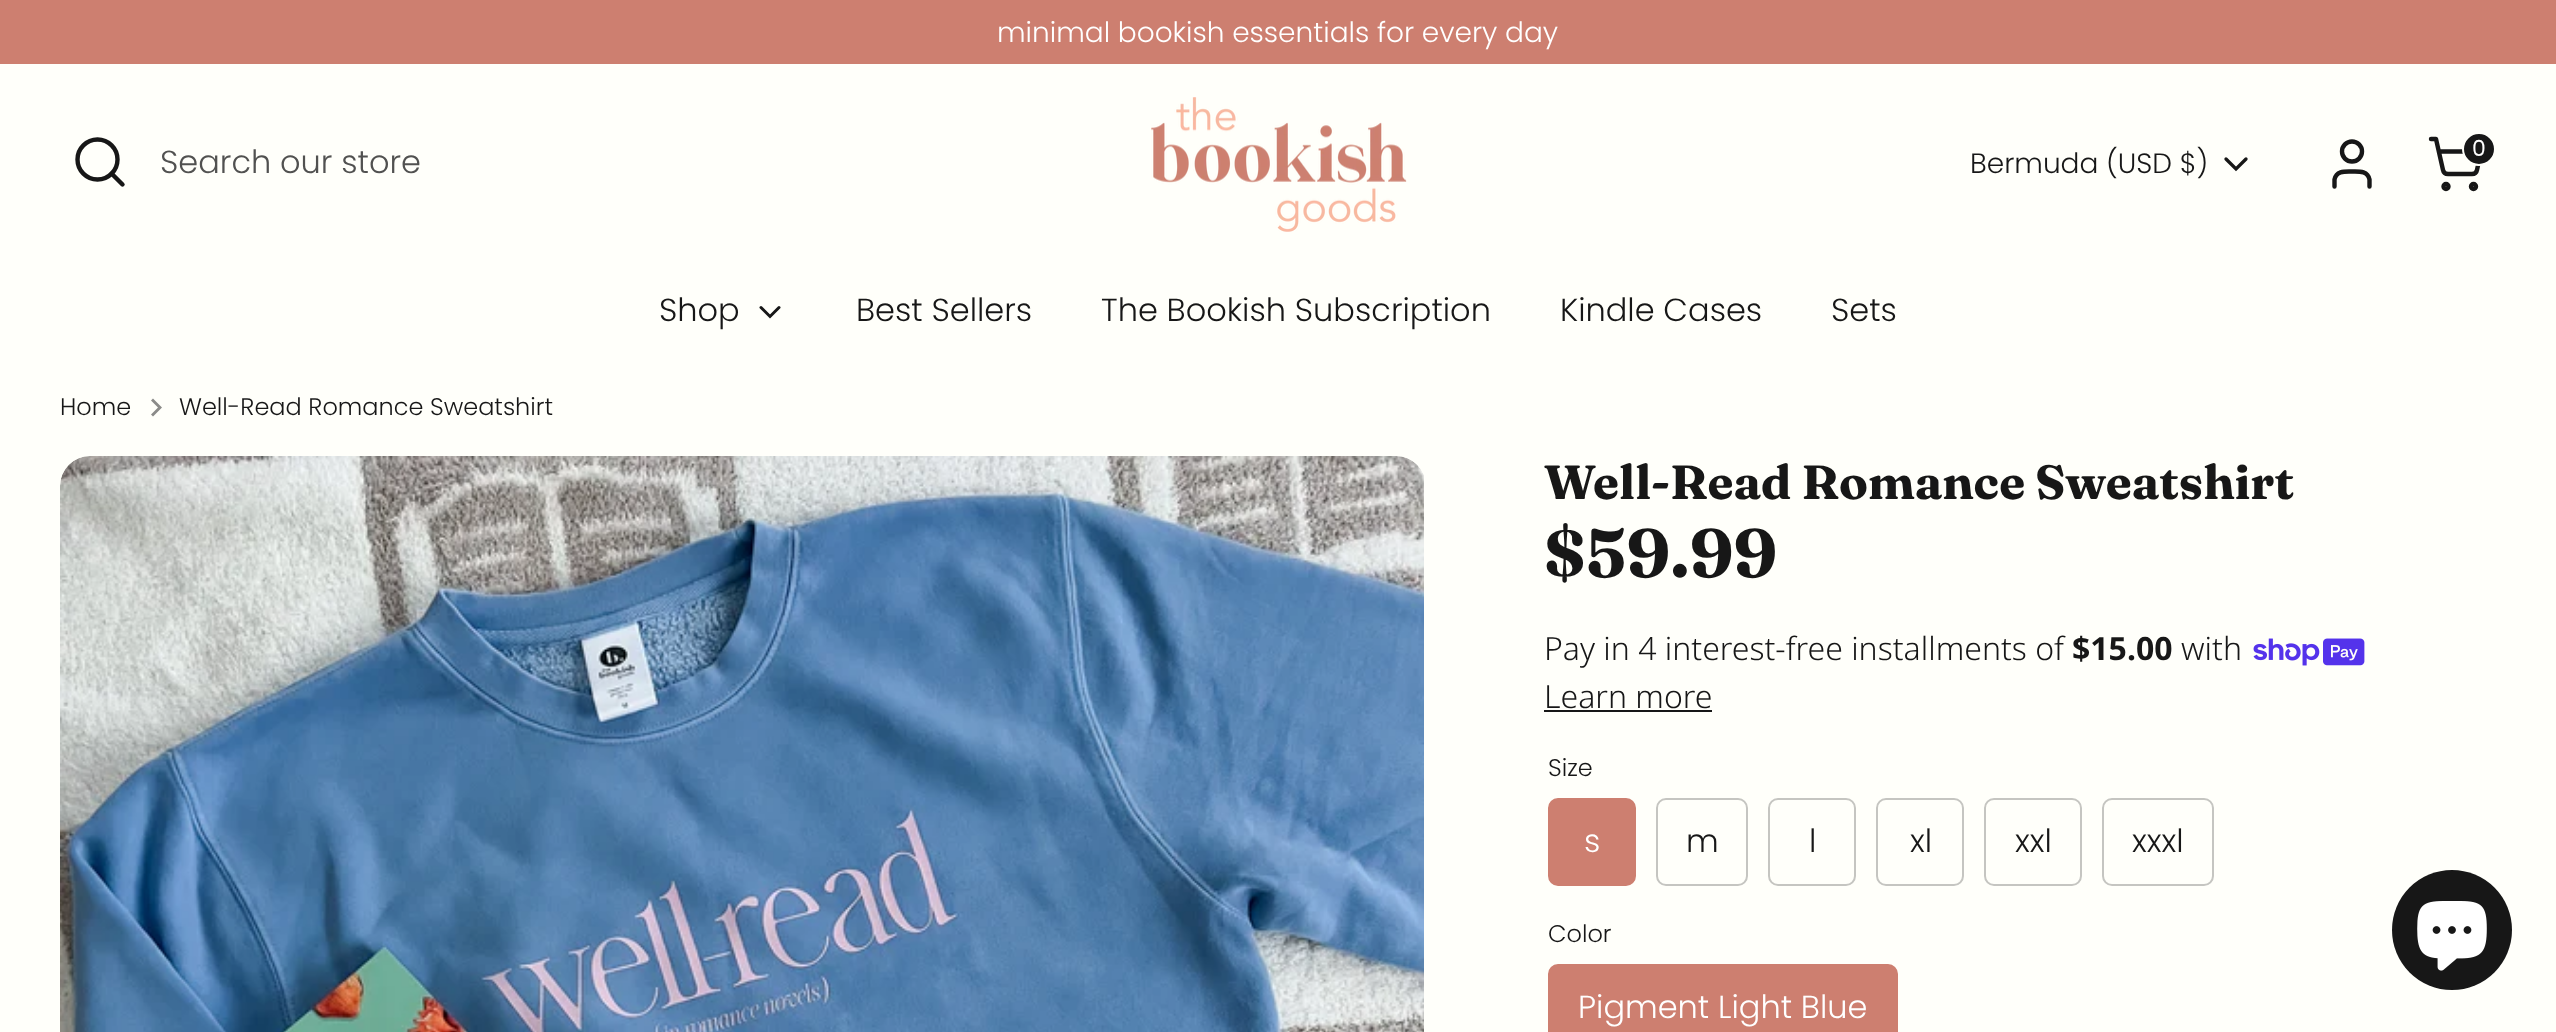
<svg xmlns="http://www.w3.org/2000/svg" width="2556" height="1032">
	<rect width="100%" height="100%" fill="#FFFFFA" />
	<rect x="0" y="0" width="2556" height="64" fill="#CD7F70" />
	<text x="997" y="42" font-family="Poppins" font-size="28" font-weight="300" fill="#FFFFFF">minimal bookish essentials for every day</text>
	<circle cx="97.5" cy="159.5" r="20" fill="none" stroke="#171717" stroke-width="4.4" />
	<path d="M122.5 184.5L111.5 173.5" fill="none" stroke="#171717" stroke-width="4.4" stroke-linecap="round" stroke-linejoin="round" />
	<text x="160" y="173" font-family="Poppins" font-size="32" font-weight="300" fill="#515150">Search our store</text>
	<image x="1151" y="97" width="256" height="135" href="assets/img1.png" />
	<text x="1970" y="173" font-family="Poppins" font-size="28" font-weight="300" fill="#171717">Bermuda (USD $)</text>
	<path d="M2226 159L2236 169L2246 159" fill="none" stroke="#171717" stroke-width="3.3" stroke-linecap="round" />
	<path d="M2369.5 186.5V179.5C2367.5 170.5 2359 171.5 2352 171.5C2345 171.5 2336.5 170.5 2334.5 179.5V186.5" fill="none" stroke="#171717" stroke-width="4.4" stroke-linecap="round" stroke-linejoin="round" />
	<circle cx="2352" cy="151.5" r="10" fill="none" stroke="#171717" stroke-width="4.4" />
	<circle cx="2446" cy="186.5" r="2.5" fill="none" stroke="#171717" stroke-width="4.4" />
	<circle cx="2473.5" cy="186.5" r="2.5" fill="none" stroke="#171717" stroke-width="4.4" />
	<path d="M2431 139H2436L2443 170C2443.5 172.5 2445.5 174 2448 174H2472C2474.5 174 2476.5 172.5 2477 170L2481 151.5H2439" fill="none" stroke="#171717" stroke-width="4.4" stroke-linecap="round" stroke-linejoin="round" />
	<circle cx="2479" cy="149" r="16" fill="#171717" stroke="#FFFFFA" stroke-width="2" />
	<text x="2472" y="156" font-family="Poppins" font-size="22" fill="#FFFFFF">0</text>
	<text x="659" y="321" font-family="Poppins" font-size="32" font-weight="300" fill="#171717">Shop</text>
	<path d="M761 307.5L770 316.5L779 307.5" fill="none" stroke="#171717" stroke-width="3" stroke-linecap="round" />
	<g font-family="Poppins" font-size="32" font-weight="300" fill="#171717">
		<text x="856" y="321">Best Sellers</text>
		<text x="1101" y="321">The Bookish Subscription</text>
		<text x="1560" y="321">Kindle Cases</text>
		<text x="1831" y="321">Sets</text>
	</g>
	<text x="60" y="415" font-family="Poppins" font-size="24" font-weight="300" fill="#171717">Home</text>
	<path d="M151 414.5L158 407.5L151 400.5L153 398.5L162 407.5L153 416.5Z" fill="#8B8B89" />
	<text x="179" y="415" font-family="Poppins" font-size="24" font-weight="300" fill="#171717">Well-Read Romance Sweatshirt</text>
	<image x="60" y="456" width="1364" height="576" href="assets/img2.png" />
	<text x="1544" y="499" font-family="Fraunces" font-size="48" font-weight="700" fill="#171717">Well-Read Romance Sweatshirt</text>
	<text x="1544" y="577" font-family="'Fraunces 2'" font-size="68" font-weight="700" fill="#171717">$59.99</text>
	<text x="1544" y="660" font-family="Noto Sans" font-size="32" font-weight="300" fill="#171717">Pay in 4 interest-free installments of</text>
	<text x="2072" y="660" font-family="Noto Sans" font-size="32" font-weight="700" fill="#171717">$15.00</text>
	<text x="2181" y="660" font-family="Noto Sans" font-size="32" font-weight="300" fill="#171717">with</text>
	<image x="2253" y="638" width="112" height="28" href="assets/img3.png" />
	<text x="1544" y="708" font-family="Noto Sans" font-size="32" font-weight="300" fill="#171717">Learn more</text>
	<rect x="1544" y="710" width="168" height="2" fill="#171717" />
	<text x="1548" y="776" font-family="Poppins" font-size="24" font-weight="300" fill="#171717">Size</text>
	<rect x="1549" y="799" width="86" height="86" rx="9" fill="#CD7F70" stroke="#CD7F70" stroke-width="2" />
	<text x="1584" y="852" font-family="Poppins" font-size="32" font-weight="300" fill="#FFFFFF">s</text>
	<rect x="1657" y="799" width="90" height="86" rx="9" fill="none" stroke="#C5C5C1" stroke-width="2" />
	<text x="1686" y="852" font-family="Poppins" font-size="32" font-weight="300" fill="#171717">m</text>
	<rect x="1769" y="799" width="86" height="86" rx="9" fill="none" stroke="#C5C5C1" stroke-width="2" />
	<text x="1809" y="852" font-family="Poppins" font-size="32" font-weight="300" fill="#171717">l</text>
	<rect x="1877" y="799" width="86" height="86" rx="9" fill="none" stroke="#C5C5C1" stroke-width="2" />
	<text x="1910" y="852" font-family="Poppins" font-size="32" font-weight="300" fill="#171717">xl</text>
	<rect x="1985" y="799" width="96" height="86" rx="9" fill="none" stroke="#C5C5C1" stroke-width="2" />
	<text x="2015" y="852" font-family="Poppins" font-size="32" font-weight="300" fill="#171717">xxl</text>
	<rect x="2103" y="799" width="110" height="86" rx="9" fill="none" stroke="#C5C5C1" stroke-width="2" />
	<text x="2132" y="852" font-family="Poppins" font-size="32" font-weight="300" fill="#171717">xxxl</text>
	<text x="1548" y="942" font-family="Poppins" font-size="24" font-weight="300" fill="#171717">Color</text>
	<rect x="1549" y="965" width="348" height="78" rx="9" fill="#CD7F70" stroke="#CD7F70" stroke-width="2" />
	<text x="1578" y="1018" font-family="Poppins" font-size="32" font-weight="300" fill="#FFFFFF">Pigment Light Blue</text>
	<circle cx="2452" cy="930" r="60" fill="#171717" />
	<image x="2417" y="901" width="70" height="70" href="assets/img4.png" />
</svg>
